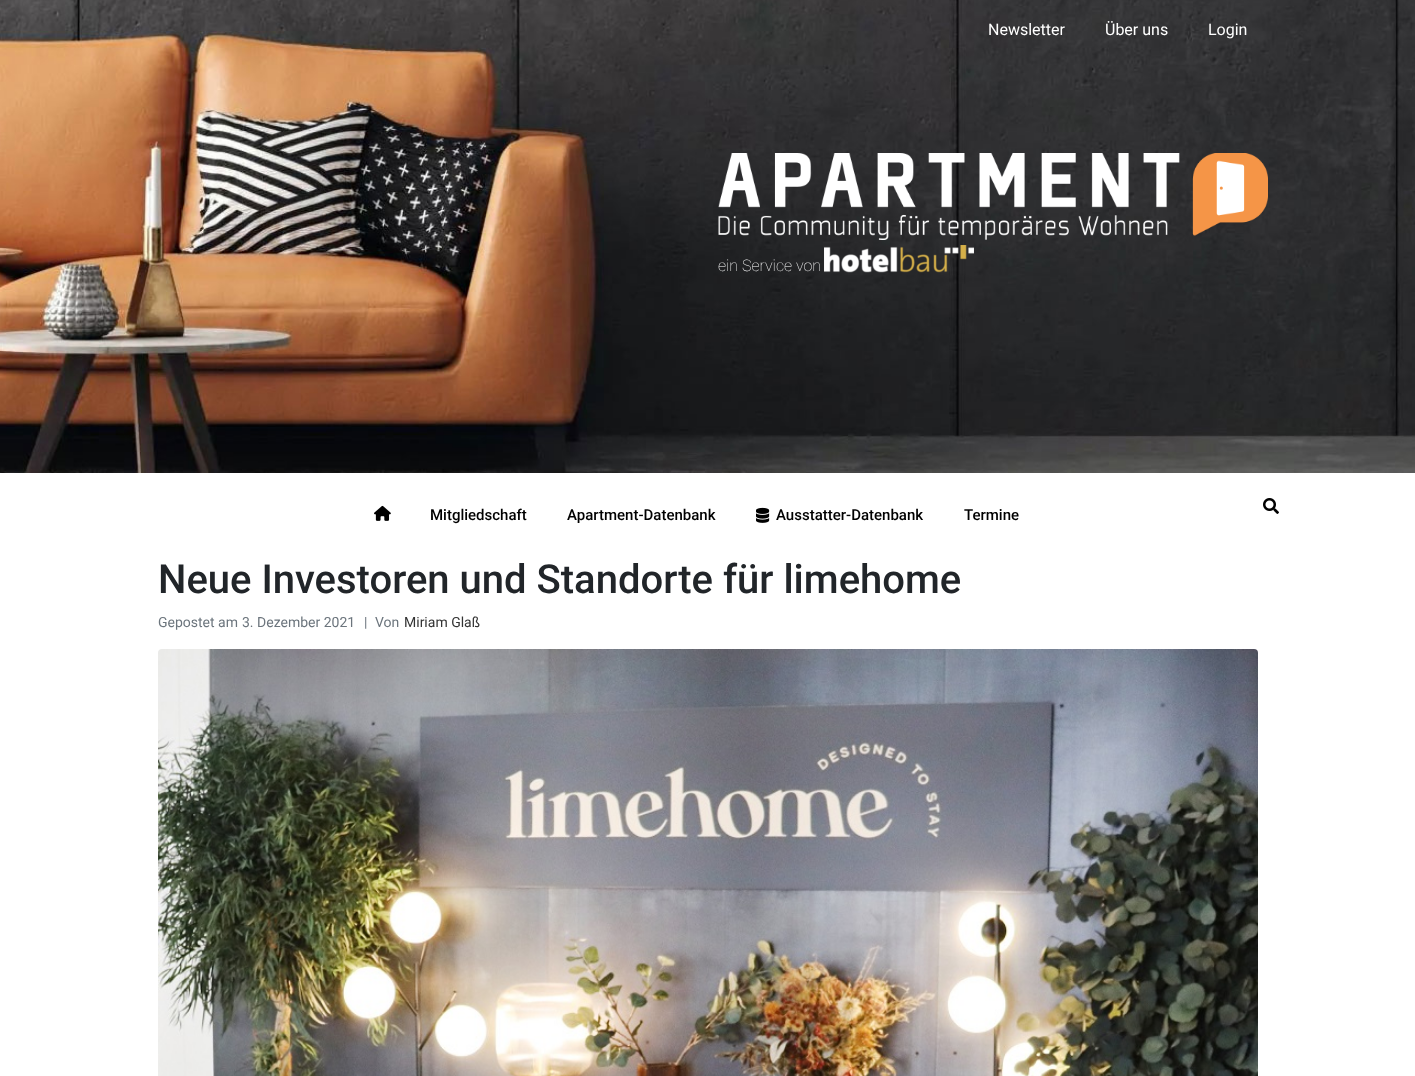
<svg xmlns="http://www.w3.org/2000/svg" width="1415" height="1076">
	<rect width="100%" height="100%" fill="#FFFFFF" />
	<image x="0" y="0" width="1415" height="473" href="assets/img1.png" />
	<g font-family="Roboto" font-size="16" fill="#FFFFFF">
		<text x="988" y="35">Newsletter</text>
		<text x="1105" y="35">Über uns</text>
		<text x="1208" y="35">Login</text>
	</g>
	<image x="718" y="153" width="550" height="87" href="assets/img2.png" />
	<text x="718" y="271" font-family="Roboto" font-size="16" font-weight="100" fill="#FFFFFF">ein Service von</text>
	<image x="824" y="245" width="150" height="28" href="assets/img3.png" />
	<image x="1263" y="498" width="16" height="16" href="assets/img4.png" />
	<image x="374" y="505" width="17" height="16" href="assets/img5.png" />
	<g font-family="Roboto" font-size="15" font-weight="500" fill="#000000">
		<text x="430" y="520">Mitgliedschaft</text>
		<text x="567" y="520">Apartment-Datenbank</text>
	</g>
	<image x="756" y="507" width="14" height="16" href="assets/img6.png" />
	<g font-family="Roboto" font-size="15" font-weight="500" fill="#000000">
		<text x="776" y="520">Ausstatter-Datenbank</text>
		<text x="964" y="520">Termine</text>
	</g>
	<text x="158" y="593" font-family="Roboto" font-size="40" font-weight="500" fill="#212529">Neue Investoren und Standorte für limehome</text>
	<g font-family="Roboto" font-size="14" fill="#6C757D">
		<text x="158" y="627">Gepostet am</text>
		<text x="242" y="627">3. Dezember 2021</text>
		<text x="364" y="627">|</text>
		<text x="375" y="627">Von</text>
	</g>
	<text x="404" y="627" font-family="Roboto" font-size="14" fill="#333333">Miriam Glaß</text>
	<image x="158" y="649" width="1100" height="427" href="assets/img7.png" />
</svg>
